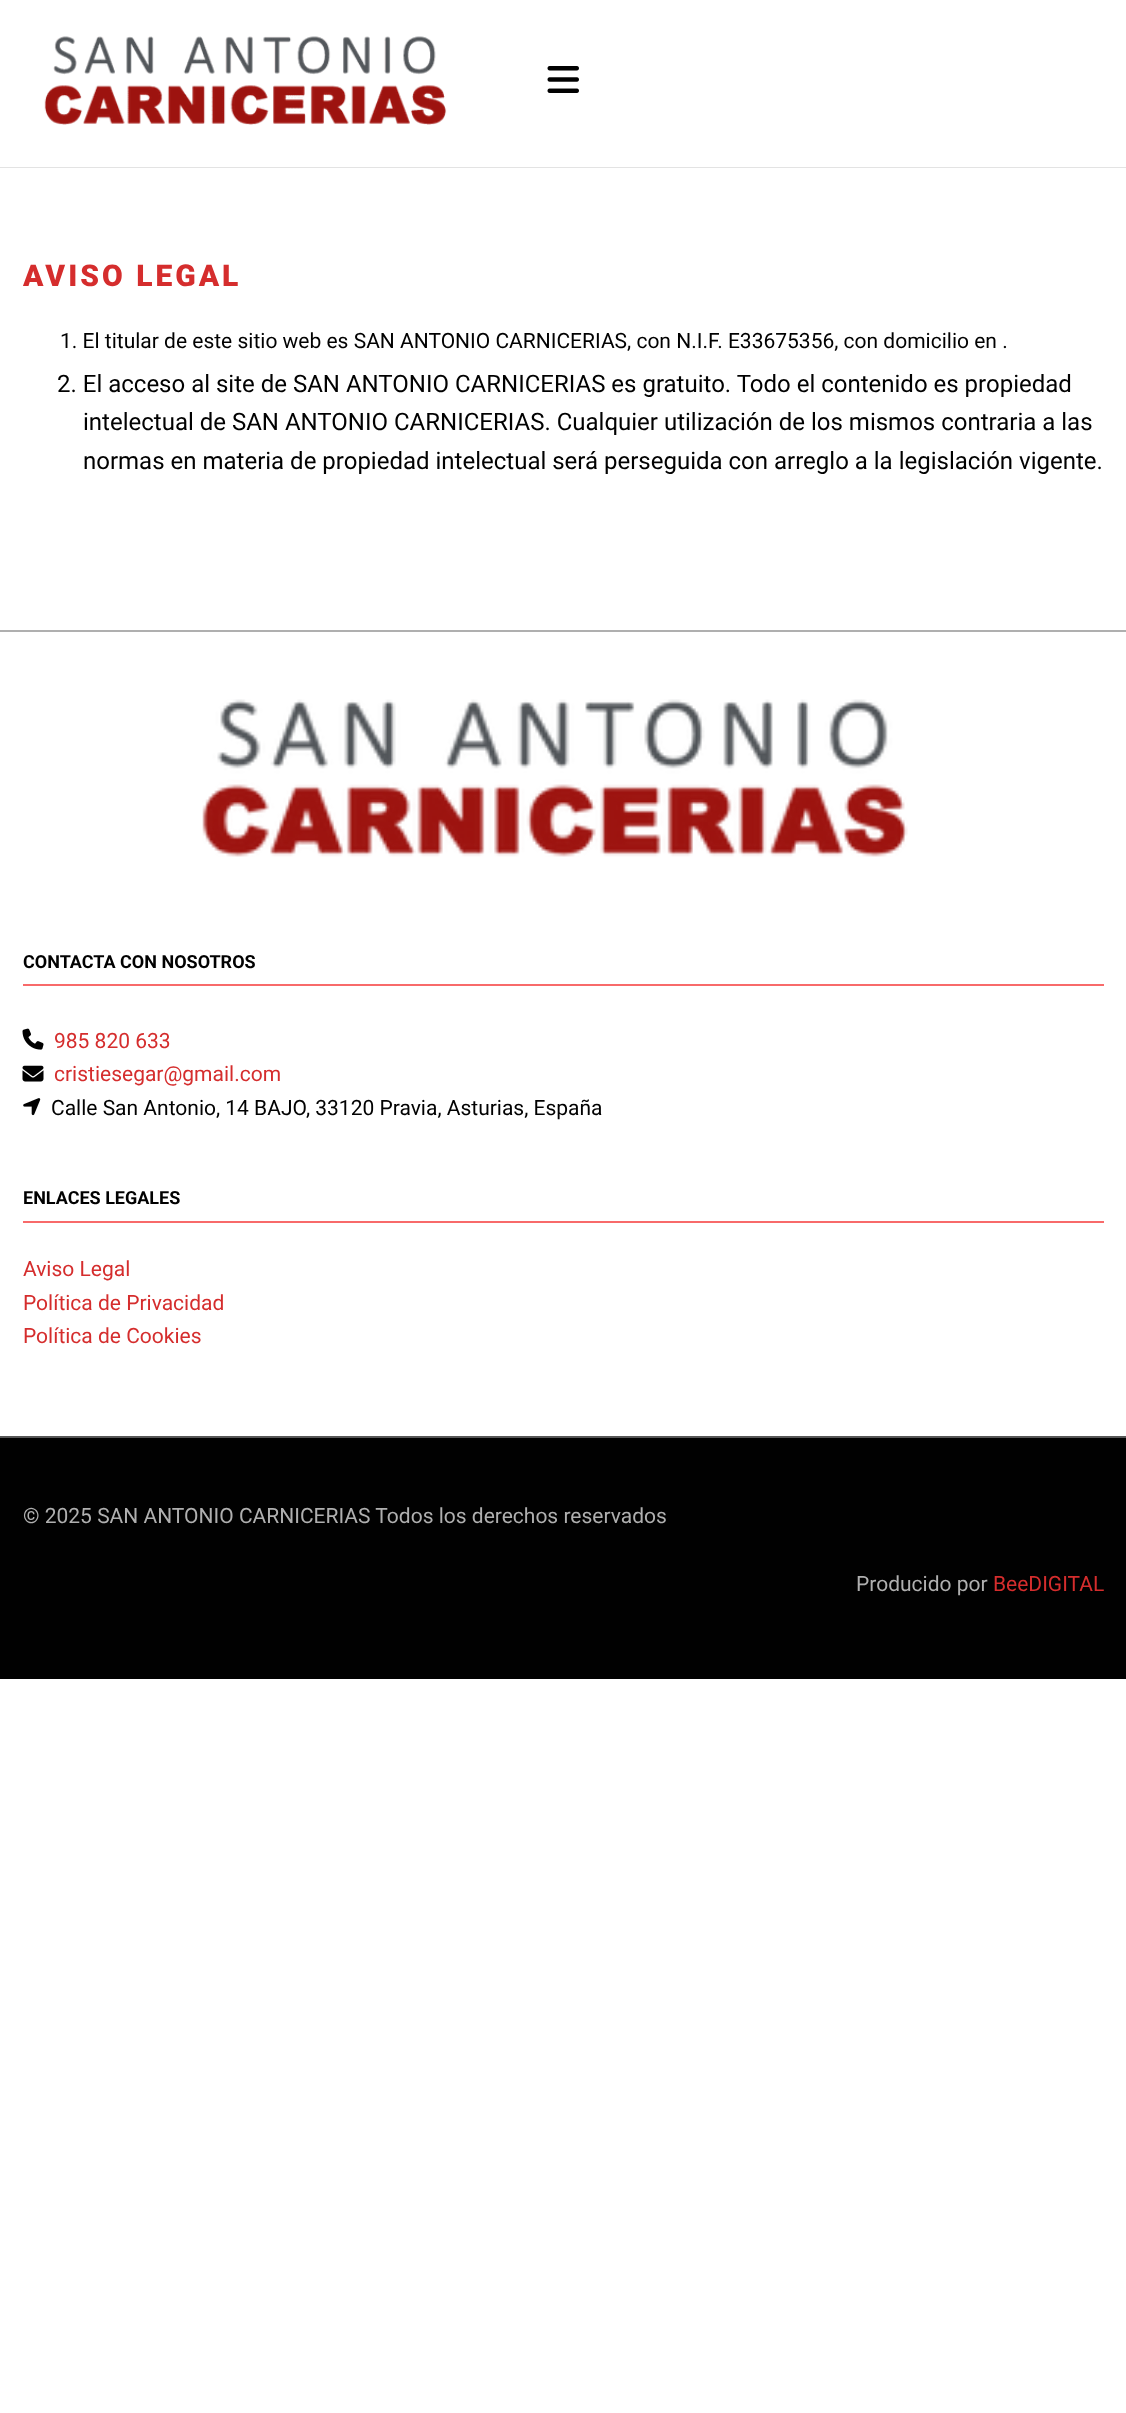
<svg xmlns="http://www.w3.org/2000/svg" width="1126" height="2413">
	<rect width="100%" height="100%" fill="#FFFFFF" />
	<rect x="0" y="167" width="1126" height="1" fill="#E3E3E3" />
	<image x="44" y="36" width="403" height="89" href="assets/img1.png" />
	<image x="547" y="66" width="32" height="27" href="assets/img2.png" />
	<text x="23" y="286" font-family="Roboto" font-size="30" font-weight="900" letter-spacing="3" fill="#D52D2D">AVISO LEGAL</text>
	<text x="60" y="348" font-family="Roboto" font-size="21" fill="#010101">1. El titular de este sitio web es SAN ANTONIO CARNICERIAS, con N.I.F. E33675356, con domicilio en .</text>
	<g font-family="Roboto" font-size="24" fill="#010101">
		<text x="57" y="392">2. El acceso al site de SAN ANTONIO CARNICERIAS es gratuito. Todo el contenido es propiedad</text>
		<text x="83" y="430">intelectual de SAN ANTONIO CARNICERIAS. Cualquier utilización de los mismos contraria a las</text>
		<text x="83" y="469">normas en materia de propiedad intelectual será perseguida con arreglo a la legislación vigente.</text>
	</g>
	<rect x="0" y="630" width="1126" height="2" fill="#AFAFAF" />
	<image x="202" y="699" width="706" height="158" href="assets/img3.png" />
	<rect x="23" y="984" width="1081" height="2" fill="#F86A6A" />
	<text x="23" y="968" font-family="Roboto" font-size="18" font-weight="700" fill="#010101">CONTACTA CON NOSOTROS</text>
	<image x="22" y="1028" width="22" height="22" href="assets/img4.png" />
	<text x="54" y="1048" font-family="Roboto" font-size="21" fill="#D52D2D">985 820 633</text>
	<image x="22" y="1065" width="22" height="17" href="assets/img5.png" />
	<text x="54" y="1081" font-family="Roboto" font-size="21" fill="#D52D2D">cristiesegar@gmail.com</text>
	<image x="23" y="1098" width="18" height="18" href="assets/img6.png" />
	<text x="51" y="1115" font-family="Roboto" font-size="21" fill="#010101">Calle San Antonio, 14 BAJO, 33120 Pravia, Asturias, España</text>
	<rect x="23" y="1221" width="1081" height="2" fill="#F86A6A" />
	<text x="23" y="1204" font-family="Roboto" font-size="18" font-weight="700" fill="#010101">ENLACES LEGALES</text>
	<g font-family="Roboto" font-size="21" fill="#D52D2D">
		<text x="23" y="1276">Aviso Legal</text>
		<text x="23" y="1310">Política de Privacidad</text>
		<text x="23" y="1343">Política de Cookies</text>
	</g>
	<rect x="0" y="1438" width="1126" height="241" fill="#010101" />
	<rect x="0" y="1436" width="1126" height="2" fill="#575757" />
	<g font-family="Roboto" font-size="21" fill="#AFAFAF">
		<text x="23" y="1523">© 2025 SAN ANTONIO CARNICERIAS Todos los derechos reservados</text>
		<text x="856" y="1591">Producido por</text>
	</g>
	<text x="993" y="1591" font-family="Roboto" font-size="21" fill="#D52D2D">BeeDIGITAL</text>
</svg>
